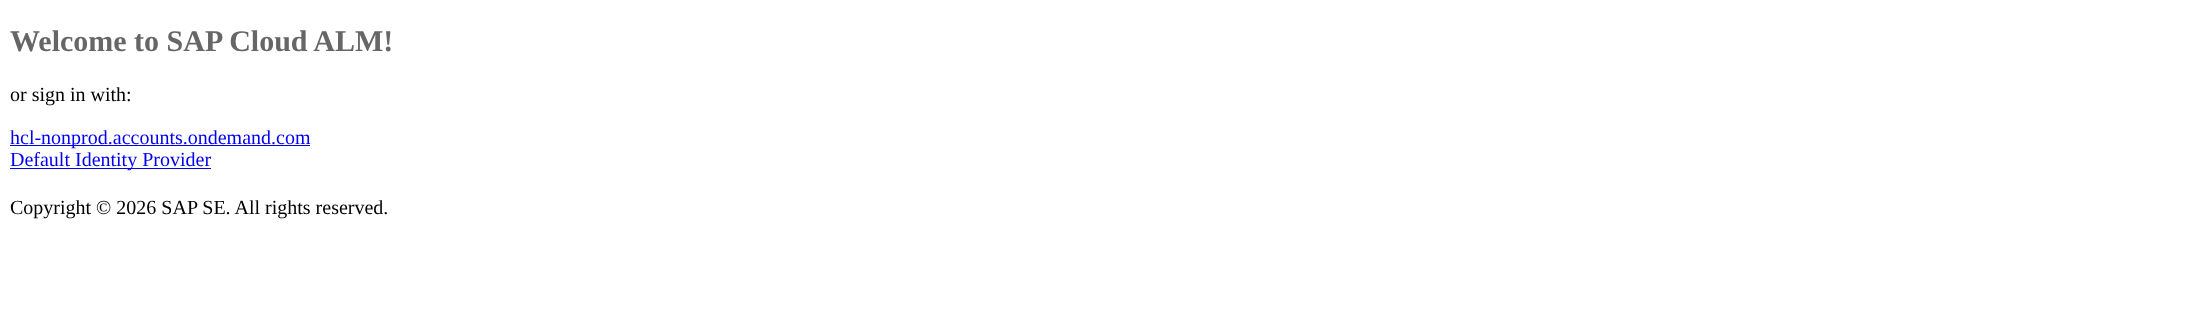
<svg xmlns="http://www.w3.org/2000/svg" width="2201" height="327">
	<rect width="100%" height="100%" fill="#FFFFFF" />
	<text x="10" y="51" font-family="Liberation Serif" font-size="30" font-weight="700" fill="#666666">Welcome to SAP Cloud ALM!</text>
	<text x="10" y="101" font-family="Liberation Serif" font-size="20" fill="#000000">or sign in with:</text>
	<rect x="10" y="145" width="300" height="1" fill="#0000EE" />
	<text x="10" y="144" font-family="Liberation Serif" font-size="20" fill="#0000EE">hcl-nonprod.accounts.ondemand.com</text>
	<rect x="10" y="168" width="201" height="1" fill="#0000EE" />
	<text x="10" y="166" font-family="Liberation Serif" font-size="20" fill="#0000EE">Default Identity Provider</text>
	<text x="10" y="214" font-family="Liberation Serif" font-size="20" fill="#000000">Copyright © 2026 SAP SE. All rights reserved.</text>
</svg>
